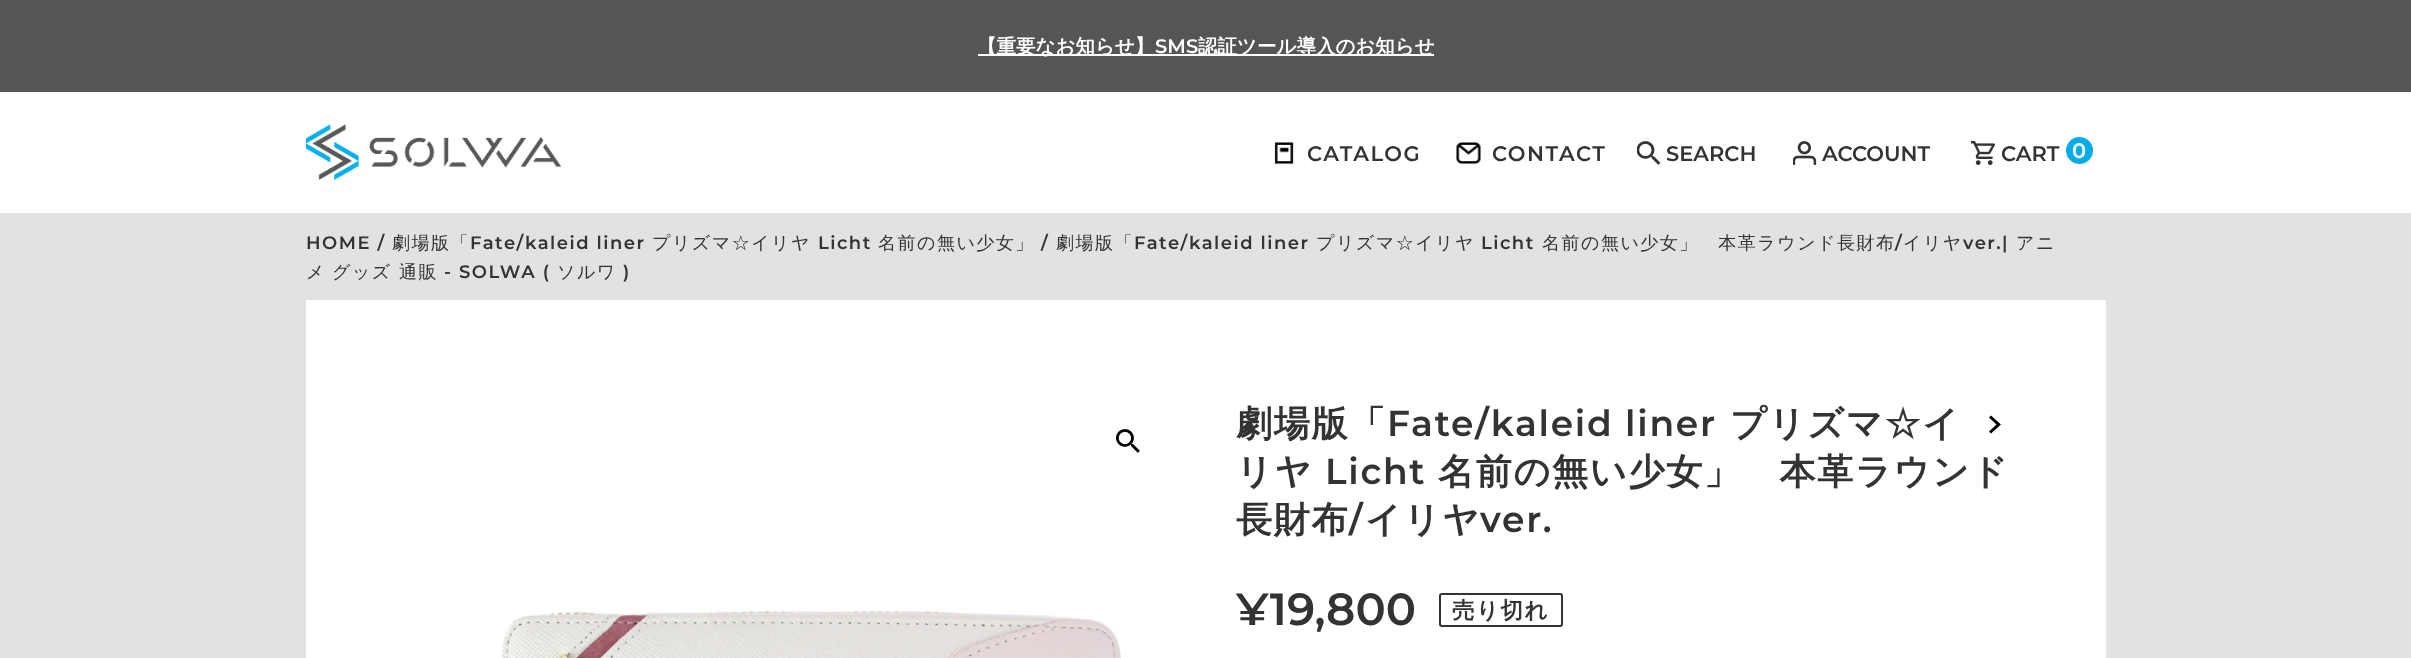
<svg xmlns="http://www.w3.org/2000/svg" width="2411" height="658">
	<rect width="100%" height="100%" fill="#E2E2E2" />
	<rect x="0" y="0" width="2411" height="92" fill="#555555" />
	<rect x="978" y="54" width="456" height="2" fill="#FFFFFF" />
	<text x="977" y="53" font-family="WenQuanYi Zen Hei" font-size="19.5" font-weight="700" fill="#FFFFFF">【重要なお知らせ】</text>
	<text x="1155" y="53" font-family="Montserrat" font-size="19.5" font-weight="100" fill="#FFFFFF">SMS</text>
	<text x="1198" y="53" font-family="WenQuanYi Zen Hei" font-size="19.5" font-weight="700" fill="#FFFFFF">認証ツール導入のお知らせ</text>
	<rect x="0" y="92" width="2411" height="121" fill="#FFFFFF" />
	<image x="306" y="124" width="255" height="56" href="assets/img1.png" />
	<image x="1274" y="142" width="20" height="23" href="assets/img2.png" />
	<text x="1307" y="161" font-family="Montserrat" font-size="21" font-weight="100" letter-spacing="1.5" fill="#333333">CATALOG</text>
	<image x="1456" y="142" width="25" height="23" href="assets/img3.png" />
	<text x="1492" y="161" font-family="Montserrat" font-size="21" font-weight="100" letter-spacing="1.5" fill="#333333">CONTACT</text>
	<image x="1637" y="141" width="24" height="24" href="assets/img4.png" />
	<text x="1666" y="161" font-family="Montserrat" font-size="21" font-weight="100" fill="#333333">SEARCH</text>
	<image x="1793" y="141" width="24" height="24" href="assets/img5.png" />
	<text x="1822" y="161" font-family="Montserrat" font-size="21" font-weight="100" fill="#333333">ACCOUNT</text>
	<image x="1971" y="141" width="24" height="24" href="assets/img6.png" />
	<text x="2001" y="161" font-family="Montserrat" font-size="21" font-weight="100" fill="#333333">CART</text>
	<circle cx="2079.5" cy="150.5" r="13.5" fill="#06ACE8" />
	<text x="2072" y="158" font-family="Montserrat" font-size="21" font-weight="100" fill="#FFFFFF">0</text>
	<text x="306" y="249" font-family="Montserrat" font-size="18" font-weight="100" letter-spacing="1.5" fill="#333333">HOME /</text>
	<text x="392" y="249" font-family="WenQuanYi Zen Hei" font-size="18" font-weight="500" letter-spacing="1.5" fill="#333333">劇場版「</text>
	<text x="470" y="249" font-family="Montserrat" font-size="18" font-weight="100" letter-spacing="1.5" fill="#333333">Fate/kaleid liner</text>
	<text x="652" y="249" font-family="WenQuanYi Zen Hei" font-size="18" font-weight="500" letter-spacing="1.5" fill="#333333">プリズマ☆イリヤ</text>
	<text x="818" y="249" font-family="Montserrat" font-size="18" font-weight="100" letter-spacing="1.5" fill="#333333">Licht</text>
	<text x="878" y="249" font-family="WenQuanYi Zen Hei" font-size="18" font-weight="500" letter-spacing="1.5" fill="#333333">名前の無い少女」</text>
	<text x="1041" y="249" font-family="Montserrat" font-size="18" font-weight="100" letter-spacing="1.5" fill="#333333">/</text>
	<text x="1056" y="249" font-family="WenQuanYi Zen Hei" font-size="18" font-weight="500" letter-spacing="1.5" fill="#333333">劇場版「</text>
	<text x="1134" y="249" font-family="Montserrat" font-size="18" font-weight="100" letter-spacing="1.5" fill="#333333">Fate/kaleid liner</text>
	<text x="1316" y="249" font-family="WenQuanYi Zen Hei" font-size="18" font-weight="500" letter-spacing="1.5" fill="#333333">プリズマ☆イリヤ</text>
	<text x="1481" y="249" font-family="Montserrat" font-size="18" font-weight="100" letter-spacing="1.5" fill="#333333">Licht</text>
	<text x="1542" y="249" font-family="WenQuanYi Zen Hei" font-size="18" font-weight="500" letter-spacing="1.5" fill="#333333">名前の無い少女」　本革ラウンド長財布</text>
	<text x="1895" y="249" font-family="Montserrat" font-size="18" font-weight="100" letter-spacing="1.5" fill="#333333">/</text>
	<text x="1903" y="249" font-family="WenQuanYi Zen Hei" font-size="18" font-weight="500" letter-spacing="1.5" fill="#333333">イリヤ</text>
	<text x="1963" y="249" font-family="Montserrat" font-size="18" font-weight="100" letter-spacing="1.5" fill="#333333">ver.|</text>
	<g font-family="WenQuanYi Zen Hei" font-size="18" font-weight="500" letter-spacing="1.5" fill="#333333">
		<text x="2016" y="249">アニ</text>
		<text x="306" y="278">メ</text>
		<text x="332" y="278">グッズ</text>
		<text x="399" y="278">通販</text>
	</g>
	<text x="444" y="278" font-family="Montserrat" font-size="18" font-weight="100" letter-spacing="1.5" fill="#333333">- SOLWA (</text>
	<text x="557" y="278" font-family="WenQuanYi Zen Hei" font-size="18" font-weight="500" letter-spacing="1.5" fill="#333333">ソルワ</text>
	<text x="623" y="278" font-family="Montserrat" font-size="18" font-weight="100" letter-spacing="1.5" fill="#333333">)</text>
	<rect x="306" y="300" width="1800" height="358" fill="#FFFFFF" />
	<image x="1116" y="429" width="24" height="24" href="assets/img7.png" />
	<image x="501" y="608" width="621" height="50" href="assets/img8.png" />
	<text x="1236" y="436" font-family="WenQuanYi Zen Hei" font-size="36" font-weight="700" letter-spacing="1.75" fill="#333333">劇場版「</text>
	<text x="1387" y="436" font-family="Montserrat" font-size="36" font-weight="100" letter-spacing="1.75" fill="#333333">Fate/kaleid liner</text>
	<g font-family="WenQuanYi Zen Hei" font-size="36" font-weight="700" letter-spacing="1.75" fill="#333333">
		<text x="1730" y="436">プリズマ☆イ</text>
		<text x="1236" y="484">リヤ</text>
	</g>
	<text x="1325" y="484" font-family="Montserrat" font-size="36" font-weight="100" letter-spacing="1.75" fill="#333333">Licht</text>
	<g font-family="WenQuanYi Zen Hei" font-size="36" font-weight="700" letter-spacing="1.75" fill="#333333">
		<text x="1438" y="484">名前の無い少女」　本革ラウンド</text>
		<text x="1236" y="532">長財布</text>
	</g>
	<text x="1349" y="532" font-family="Montserrat" font-size="36" font-weight="100" letter-spacing="1.75" fill="#333333">/</text>
	<text x="1365" y="532" font-family="WenQuanYi Zen Hei" font-size="36" font-weight="700" letter-spacing="1.75" fill="#333333">イリヤ</text>
	<text x="1480" y="532" font-family="Montserrat" font-size="36" font-weight="100" letter-spacing="1.75" fill="#333333">ver.</text>
	<path d="M1989 417.5L1991 415.5L2001 424.5L1991 433.5L1989 431.5L1996.5 424.5Z" fill="#000000" />
	<text x="1236" y="625" font-family="Montserrat" font-size="45" font-weight="100" fill="#333333">¥19,800</text>
	<rect x="1440" y="594" width="122" height="32" rx="2" fill="none" stroke="#333333" stroke-width="2" />
	<text x="1452" y="618" font-family="WenQuanYi Zen Hei" font-size="22.5" font-weight="700" letter-spacing="1.5" fill="#333333">売り切れ</text>
</svg>
